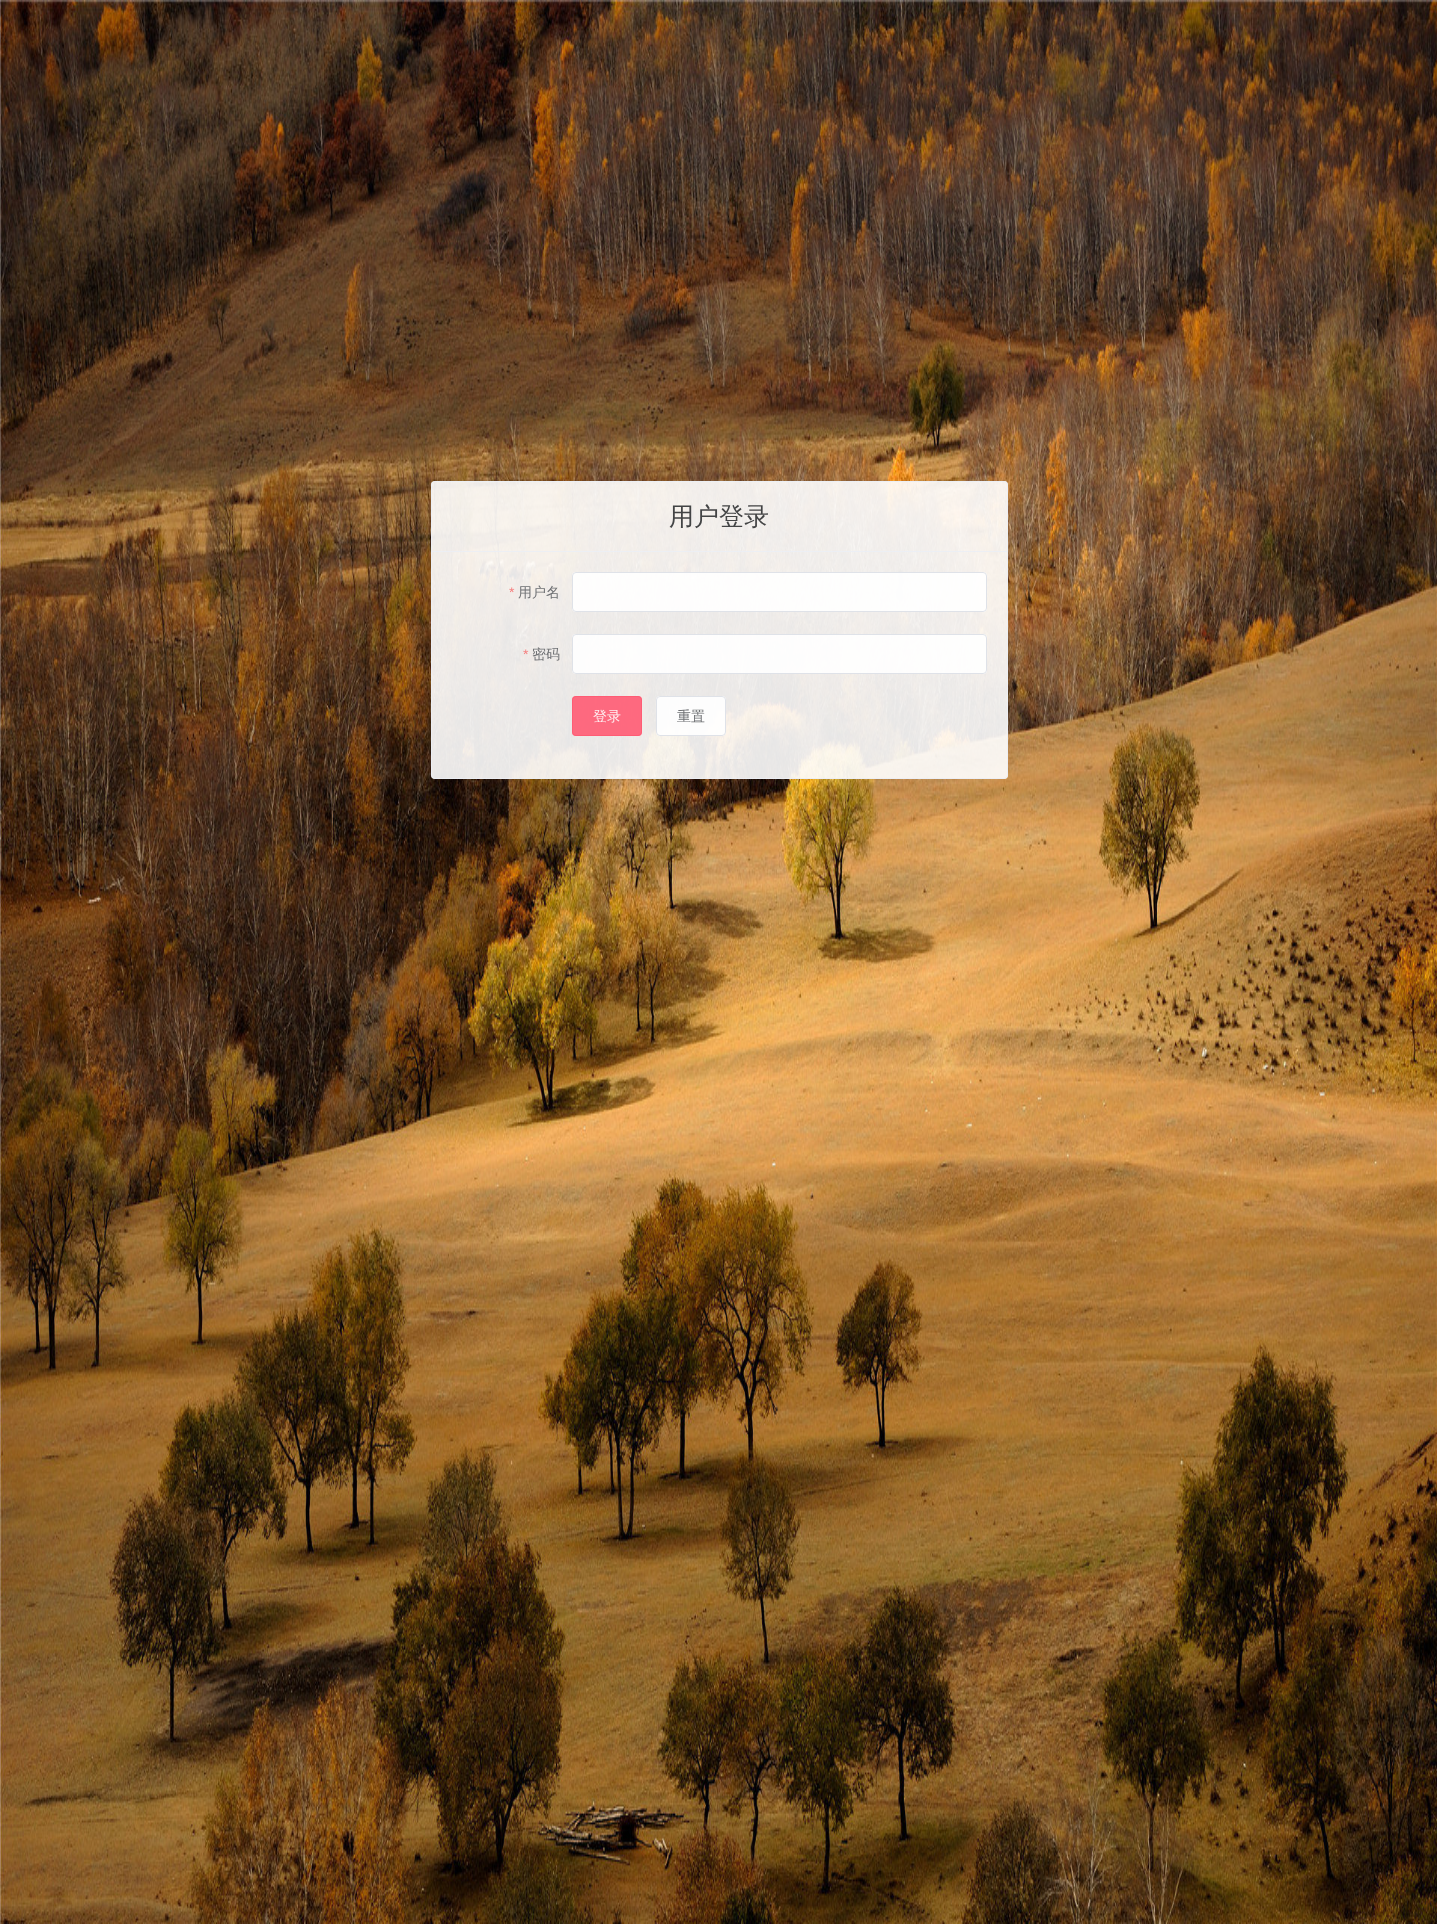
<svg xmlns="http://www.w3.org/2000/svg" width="1437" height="1924">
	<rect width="100%" height="100%" fill="#FFFFFF" />
	<image x="0" y="0" width="1437" height="1924" href="assets/img1.png" />
	<rect x="431" y="481" width="577" height="298" rx="4" fill="#FFFFFF" fill-opacity="0.9" />
	<rect x="431.5" y="481.5" width="576" height="297" rx="3.5" fill="none" stroke="#EBEEF5" stroke-opacity="0.9" />
	<rect x="432" y="551" width="575" height="1" fill="#EBEEF5" fill-opacity="0.9" />
	<text x="669" y="525" font-family="WenQuanYi Zen Hei" font-size="25" font-weight="500" fill="#434445">用户登录</text>
	<text x="509" y="597" font-family="Liberation Sans" font-size="14" fill="#F57979">*</text>
	<text x="518" y="597" font-family="WenQuanYi Zen Hei" font-size="14" font-weight="500" fill="#6E7073">用户名</text>
	<rect x="572" y="572" width="415" height="40" rx="4" fill="#FFFFFF" fill-opacity="0.9" />
	<rect x="572.5" y="572.5" width="414" height="39" rx="3.5" fill="none" stroke="#DCDFE6" stroke-opacity="0.9" />
	<text x="523" y="659" font-family="Liberation Sans" font-size="14" fill="#F57979">*</text>
	<text x="532" y="659" font-family="WenQuanYi Zen Hei" font-size="14" font-weight="500" fill="#6E7073">密码</text>
	<rect x="572" y="634" width="415" height="40" rx="4" fill="#FFFFFF" fill-opacity="0.9" />
	<rect x="572.5" y="634.5" width="414" height="39" rx="3.5" fill="none" stroke="#DCDFE6" stroke-opacity="0.9" />
	<rect x="572" y="696" width="70" height="40" rx="4" fill="#FF5B73" fill-opacity="0.9" />
	<rect x="572.5" y="696.5" width="69" height="39" rx="3.5" fill="none" stroke="#FF5B73" stroke-opacity="0.9" />
	<text x="593" y="721" font-family="WenQuanYi Zen Hei" font-size="14" font-weight="500" fill="#FFF0F2">登录</text>
	<rect x="656" y="696" width="70" height="40" rx="4" fill="#FFFFFF" fill-opacity="0.9" />
	<rect x="656.5" y="696.5" width="69" height="39" rx="3.5" fill="none" stroke="#DCDFE6" stroke-opacity="0.9" />
	<text x="677" y="721" font-family="WenQuanYi Zen Hei" font-size="14" font-weight="500" fill="#6E7073">重置</text>
</svg>
